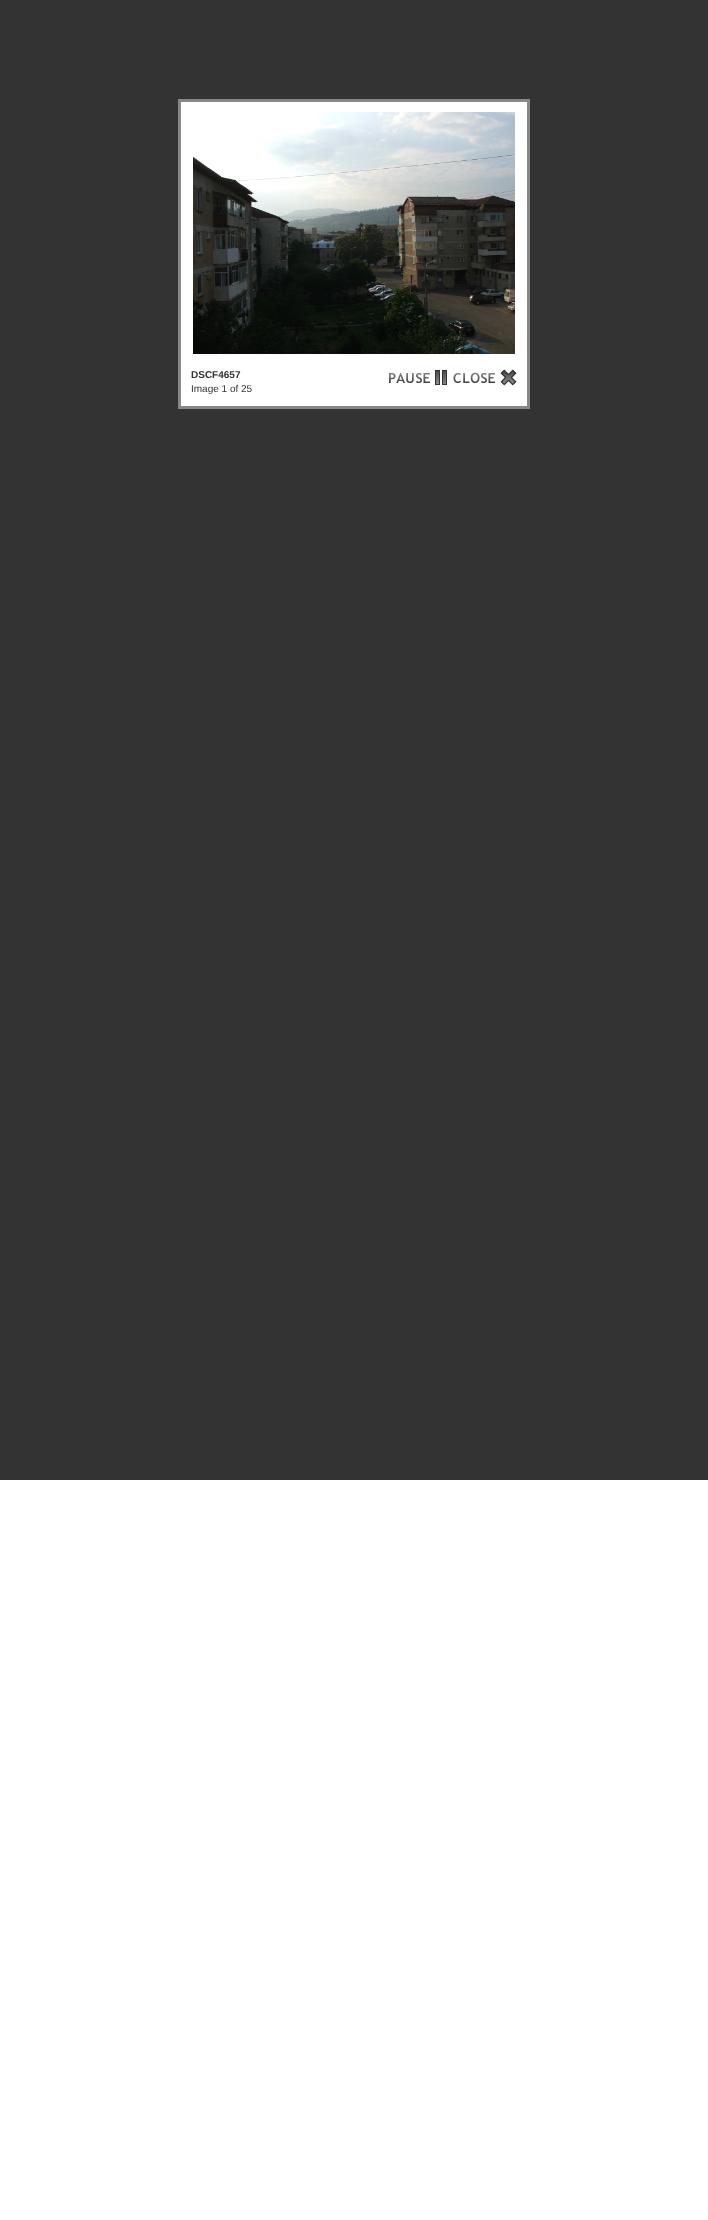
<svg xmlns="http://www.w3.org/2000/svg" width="708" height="2220">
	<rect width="100%" height="100%" fill="#FFFFFF" />
	<rect x="0" y="0" width="708" height="1480" fill="#333333" />
	<rect x="178" y="99" width="352" height="3" fill="#888888" />
	<rect x="527" y="99" width="3" height="269" fill="#888888" />
	<rect x="178" y="99" width="3" height="269" fill="#888888" />
	<rect x="181" y="102" width="346" height="304" fill="#FFFFFF" />
	<image x="193" y="112" width="322" height="242" href="assets/img1.png" />
	<rect x="527" y="368" width="3" height="41" fill="#888888" />
	<rect x="178" y="406" width="352" height="3" fill="#888888" />
	<rect x="178" y="368" width="3" height="41" fill="#888888" />
	<text x="191" y="378" font-family="Liberation Sans" font-size="10" font-weight="700" fill="#333333">DSCF4657</text>
	<text x="191" y="392" font-family="Liberation Sans" font-size="10" fill="#333333">Image 1 of 25</text>
	<image x="389" y="370" width="58" height="15" href="assets/img2.png" />
	<image x="453" y="369" width="64" height="17" href="assets/img3.png" />
</svg>
